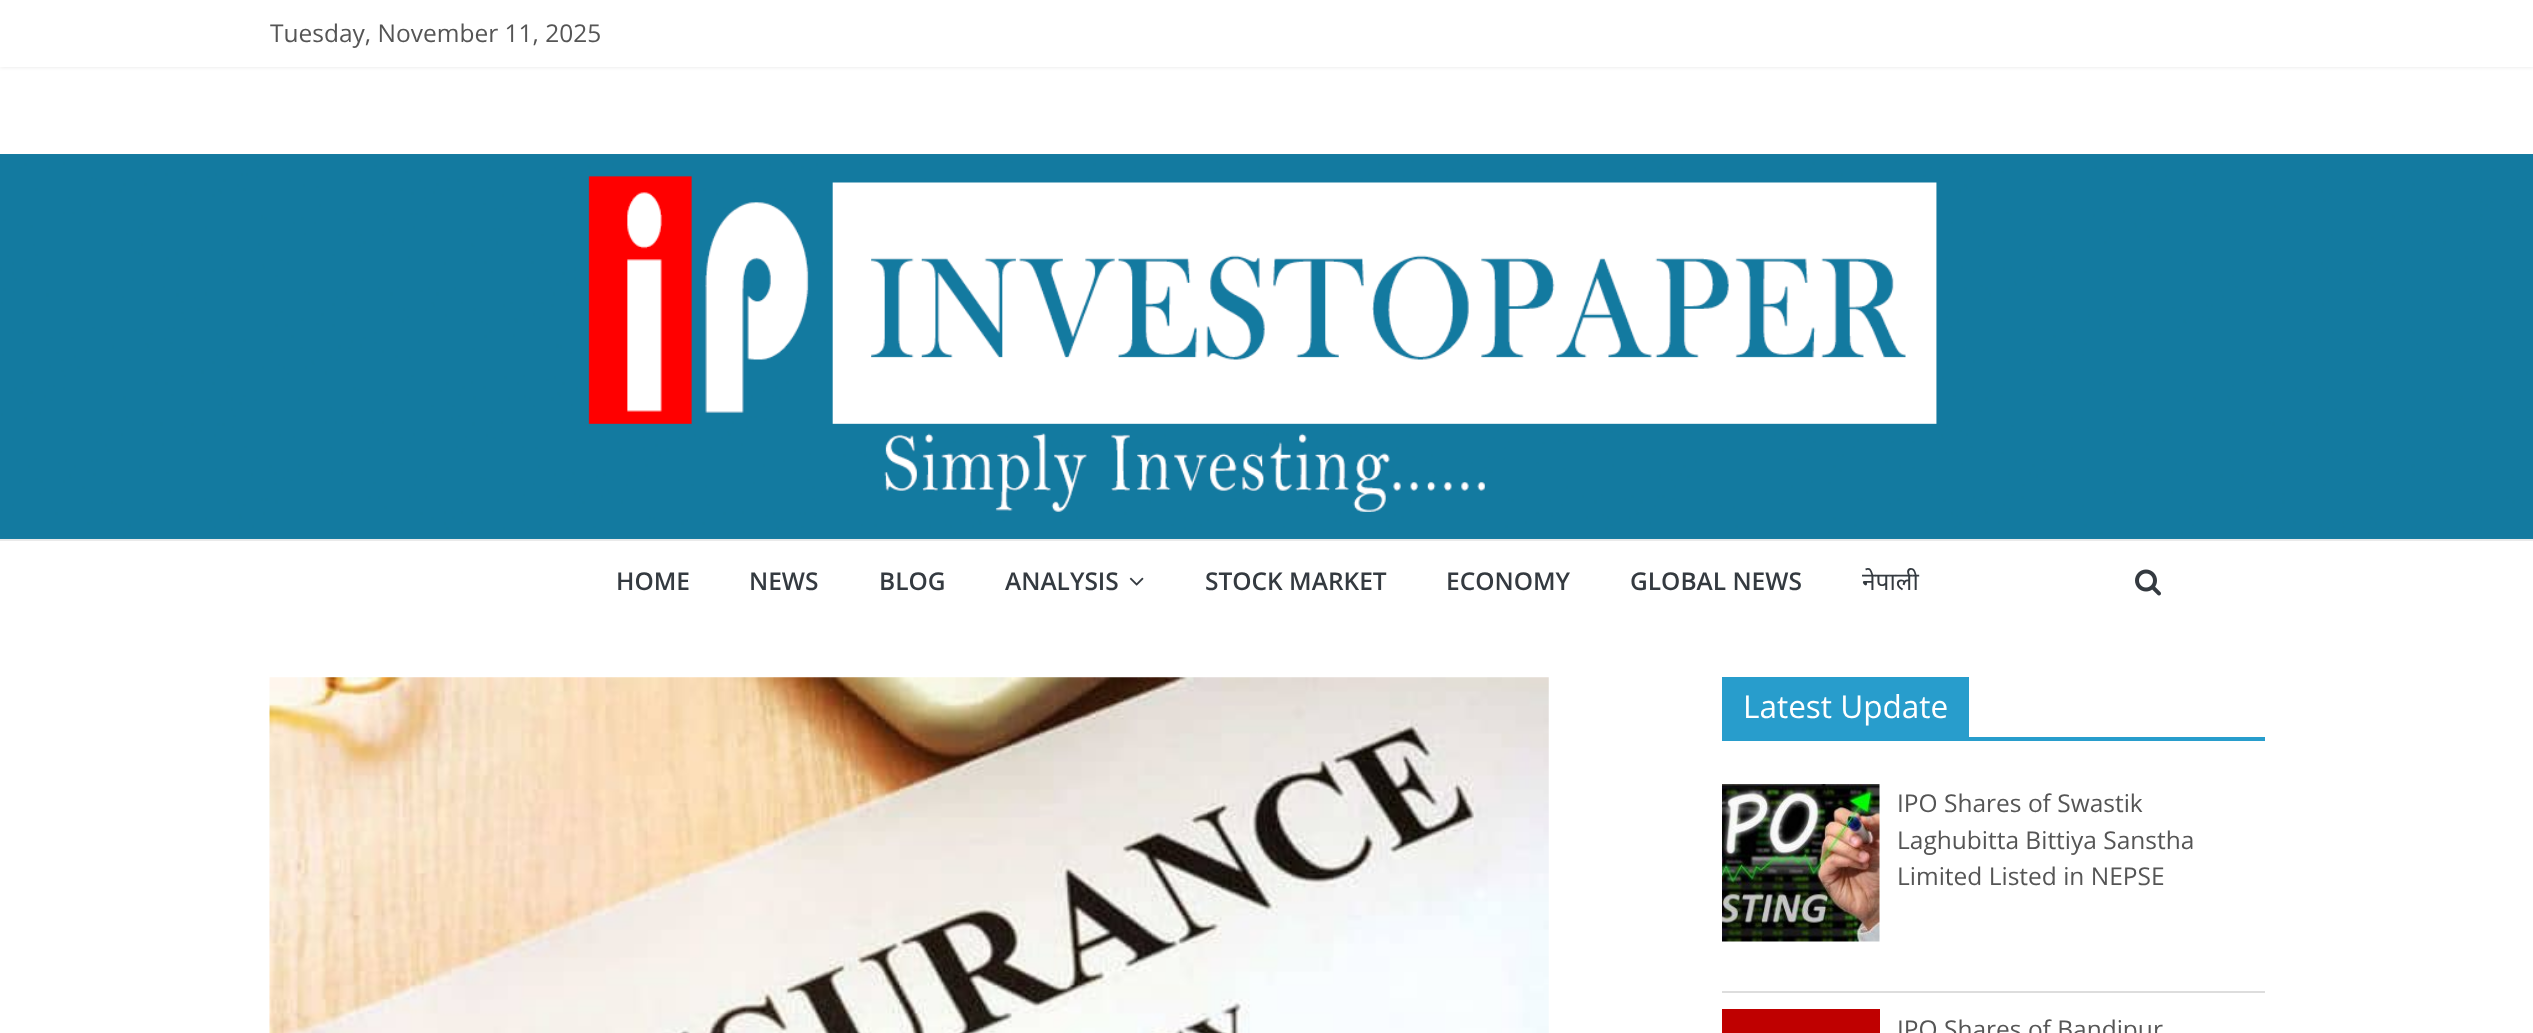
<svg xmlns="http://www.w3.org/2000/svg" width="2533" height="1033">
	<rect width="100%" height="100%" fill="#FFFFFF" />
	<rect x="0" y="0" width="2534" height="67" fill="#000000" fill-opacity="0.1" filter="blur(2px)" />
	<rect x="0" y="0" width="2533" height="67" fill="#FFFFFF" />
	<text x="270" y="42" font-family="Open Sans" font-size="24.5" fill="#555555">Tuesday, November 11, 2025</text>
	<image x="0" y="154" width="2533" height="385" href="assets/img1.png" />
	<rect x="0" y="539" width="2533" height="2" fill="#EAEAEA" />
	<g font-family="Open Sans" font-size="24.5" font-weight="600" fill="#343A40">
		<text x="616" y="590">HOME</text>
		<text x="749" y="590">NEWS</text>
		<text x="879" y="590">BLOG</text>
		<text x="1005" y="590">ANALYSIS</text>
	</g>
	<image x="1129" y="577" width="15" height="9" href="assets/img2.png" />
	<g font-family="Open Sans" font-size="24.5" font-weight="600" fill="#343A40">
		<text x="1205" y="590">STOCK MARKET</text>
		<text x="1446" y="590">ECONOMY</text>
		<text x="1630" y="590">GLOBAL NEWS</text>
	</g>
	<text x="1862" y="590" font-family="Noto Sans" font-size="24.5" fill="#343A40">नेपाली</text>
	<image x="2135" y="569" width="26" height="27" href="assets/img3.png" />
	<image x="269" y="677" width="1280" height="356" href="assets/img4.png" />
	<rect x="1722" y="737" width="543" height="4" fill="#289DCC" />
	<rect x="1722" y="677" width="247" height="60" fill="#289DCC" />
	<text x="1743" y="718" font-family="Open Sans" font-size="31.5" fill="#FFFFFF">Latest Update</text>
	<rect x="1722" y="991" width="543" height="2" fill="#DDDDDD" />
	<image x="1722" y="784" width="158" height="158" href="assets/img5.png" />
	<g font-family="Open Sans" font-size="24.5" fill="#555555">
		<text x="1897" y="812">IPO Shares of Swastik</text>
		<text x="1897" y="849">Laghubitta Bittiya Sanstha</text>
		<text x="1897" y="885">Limited Listed in NEPSE</text>
	</g>
	<rect x="1722" y="1009" width="158" height="24" fill="#BF0000" />
	<text x="1897" y="1038" font-family="Open Sans" font-size="24.5" fill="#555555">IPO Shares of Bandipur</text>
</svg>
